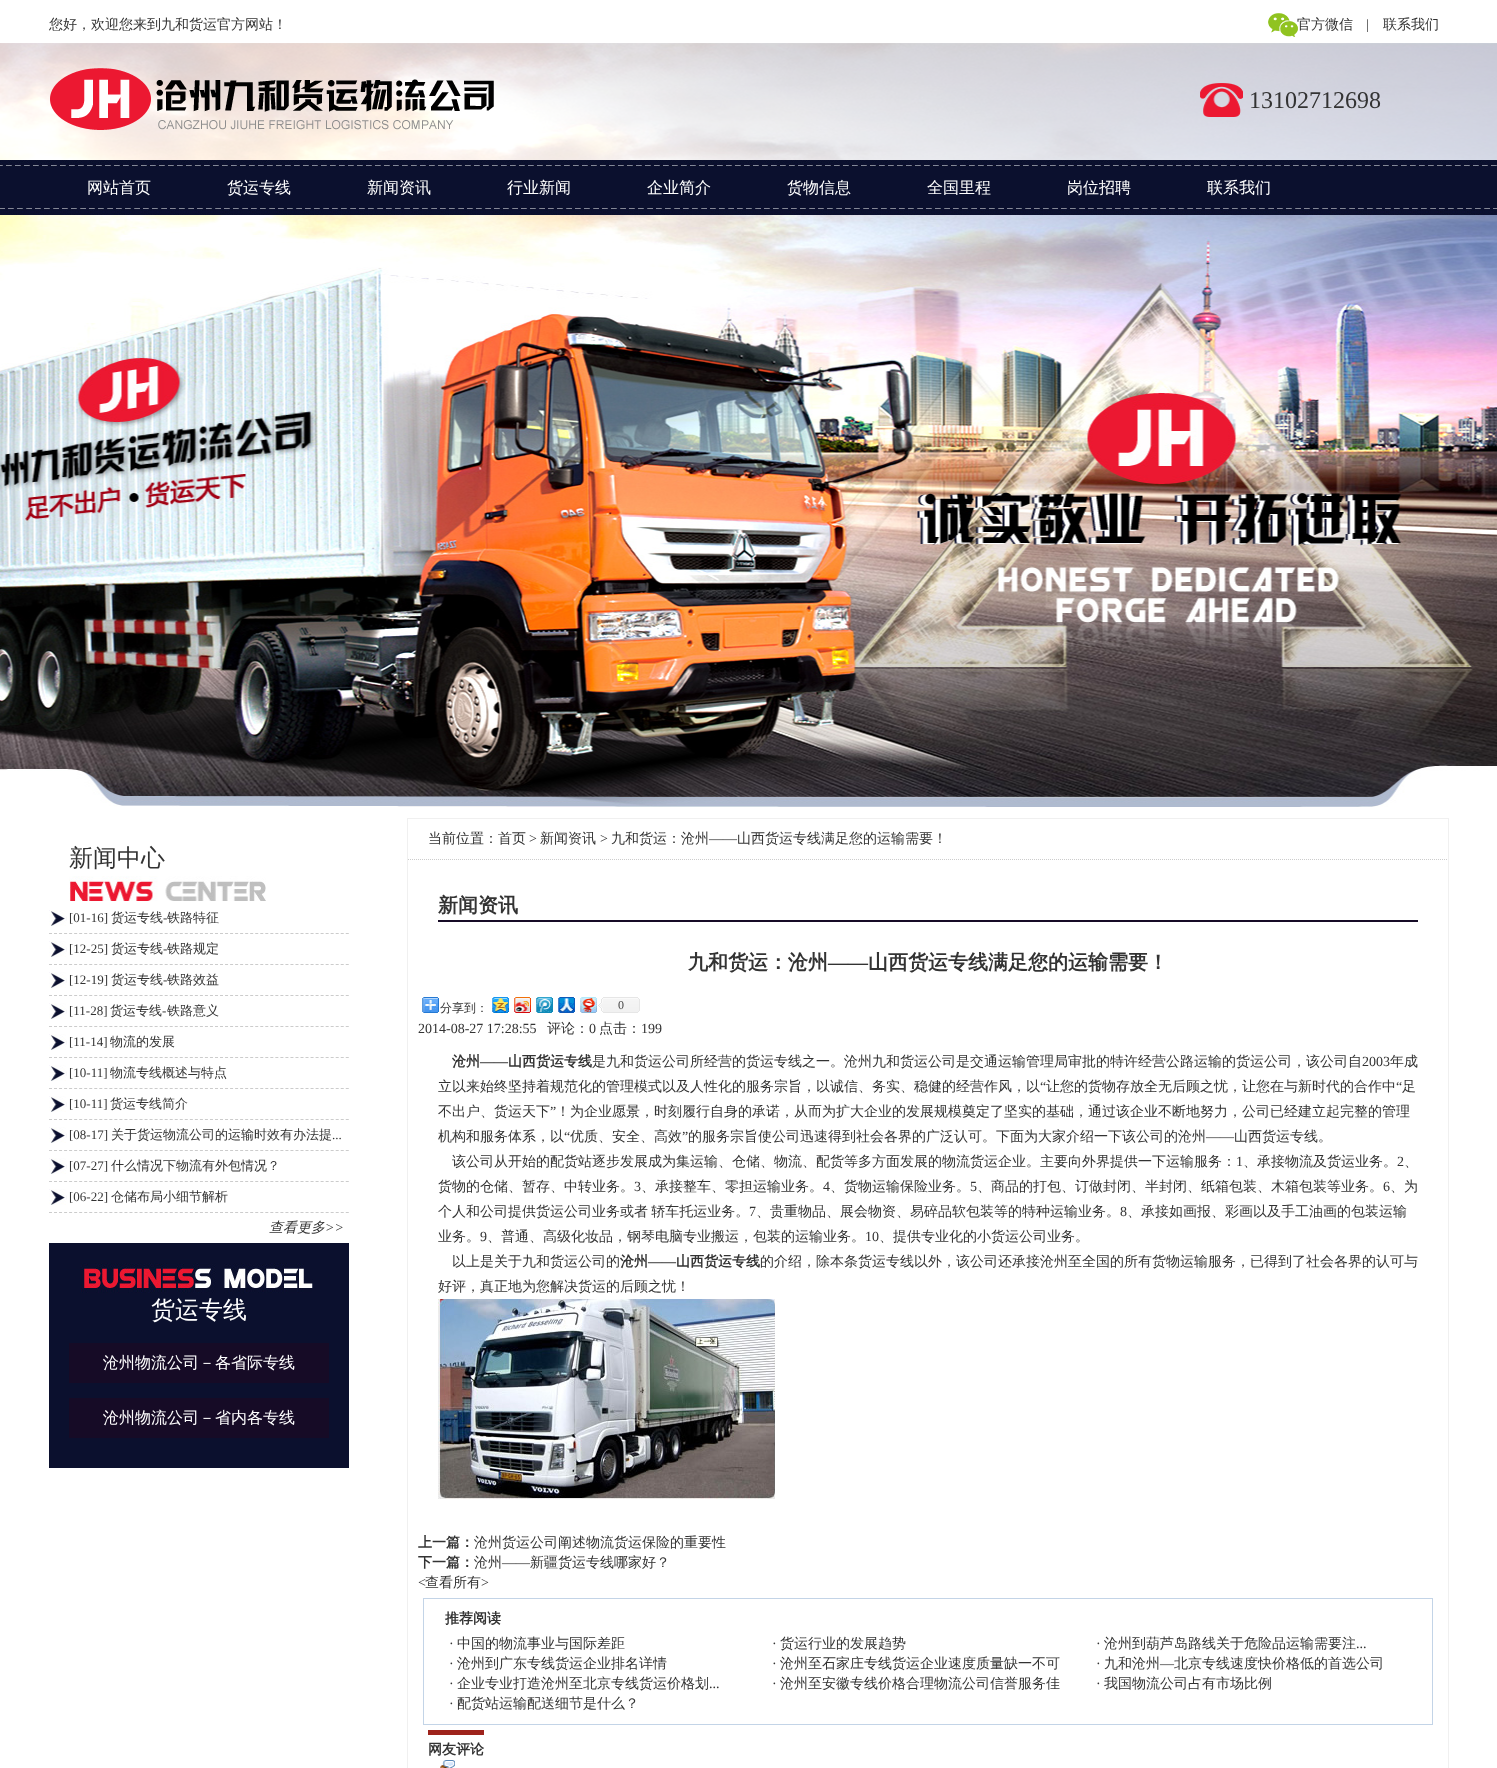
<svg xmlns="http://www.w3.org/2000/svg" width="1497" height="1768">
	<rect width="100%" height="100%" fill="#FFFFFF" />
	<image x="0" y="43" width="1497" height="764" href="assets/img5.png" />
	<rect x="0" y="43" width="1497" height="117" fill="#FFFFFF" fill-opacity="0.7" />
	<text x="49" y="29" font-family="WenQuanYi Zen Hei" font-size="14" font-weight="500" fill="#333333">您好，欢迎您来到九和货运官方网站！</text>
	<image x="1268" y="13" width="30" height="24" href="assets/img1.png" />
	<text x="1297" y="29" font-family="WenQuanYi Zen Hei" font-size="14" font-weight="500" fill="#333333">官方微信</text>
	<text x="1366" y="29" font-family="Liberation Serif" font-size="14" fill="#333333">|</text>
	<text x="1383" y="29" font-family="WenQuanYi Zen Hei" font-size="14" font-weight="500" fill="#333333">联系我们</text>
	<image x="50" y="68" width="444" height="62" href="assets/img2.png" />
	<image x="1200" y="83" width="43" height="34" href="assets/img3.png" />
	<text x="1249" y="108" font-family="Liberation Serif" font-size="24" fill="#333333">13102712698</text>
	<image x="0" y="160" width="1497" height="55" href="assets/img4.png" />
	<g font-family="WenQuanYi Zen Hei" font-size="16" font-weight="500" fill="#FFFFFF">
		<text x="87" y="193">网站首页</text>
		<text x="227" y="193">货运专线</text>
		<text x="367" y="193">新闻资讯</text>
		<text x="507" y="193">行业新闻</text>
		<text x="647" y="193">企业简介</text>
		<text x="787" y="193">货物信息</text>
		<text x="927" y="193">全国里程</text>
		<text x="1067" y="193">岗位招聘</text>
		<text x="1207" y="193">联系我们</text>
	</g>
	<image x="69" y="876" width="197" height="25" href="assets/img6.png" />
	<text x="69" y="866" font-family="WenQuanYi Zen Hei" font-size="24" font-weight="500" fill="#333333">新闻中心</text>
	<image x="49" y="910" width="18" height="16" href="assets/img7.png" />
	<path d="M49 933.5H349" fill="none" stroke="#CCCCCC" stroke-dasharray="3 2.03" />
	<text x="69" y="922" font-family="Liberation Serif" font-size="13" fill="#333333">[01-16]</text>
	<text x="111" y="922" font-family="WenQuanYi Zen Hei" font-size="13" font-weight="500" fill="#333333">货运专线</text>
	<text x="163" y="922" font-family="Liberation Serif" font-size="13" fill="#333333">-</text>
	<text x="167" y="922" font-family="WenQuanYi Zen Hei" font-size="13" font-weight="500" fill="#333333">铁路特征</text>
	<image x="49" y="941" width="18" height="16" href="assets/img7.png" />
	<path d="M49 964.5H349" fill="none" stroke="#CCCCCC" stroke-dasharray="3 2.03" />
	<text x="69" y="953" font-family="Liberation Serif" font-size="13" fill="#333333">[12-25]</text>
	<text x="111" y="953" font-family="WenQuanYi Zen Hei" font-size="13" font-weight="500" fill="#333333">货运专线</text>
	<text x="163" y="953" font-family="Liberation Serif" font-size="13" fill="#333333">-</text>
	<text x="167" y="953" font-family="WenQuanYi Zen Hei" font-size="13" font-weight="500" fill="#333333">铁路规定</text>
	<image x="49" y="972" width="18" height="16" href="assets/img7.png" />
	<path d="M49 995.5H349" fill="none" stroke="#CCCCCC" stroke-dasharray="3 2.03" />
	<text x="69" y="984" font-family="Liberation Serif" font-size="13" fill="#333333">[12-19]</text>
	<text x="111" y="984" font-family="WenQuanYi Zen Hei" font-size="13" font-weight="500" fill="#333333">货运专线</text>
	<text x="163" y="984" font-family="Liberation Serif" font-size="13" fill="#333333">-</text>
	<text x="167" y="984" font-family="WenQuanYi Zen Hei" font-size="13" font-weight="500" fill="#333333">铁路效益</text>
	<image x="49" y="1003" width="18" height="16" href="assets/img7.png" />
	<path d="M49 1026.5H349" fill="none" stroke="#CCCCCC" stroke-dasharray="3 2.03" />
	<text x="69" y="1015" font-family="Liberation Serif" font-size="13" fill="#333333">[11-28]</text>
	<text x="110" y="1015" font-family="WenQuanYi Zen Hei" font-size="13" font-weight="500" fill="#333333">货运专线</text>
	<text x="162" y="1015" font-family="Liberation Serif" font-size="13" fill="#333333">-</text>
	<text x="167" y="1015" font-family="WenQuanYi Zen Hei" font-size="13" font-weight="500" fill="#333333">铁路意义</text>
	<image x="49" y="1034" width="18" height="16" href="assets/img7.png" />
	<path d="M49 1057.5H349" fill="none" stroke="#CCCCCC" stroke-dasharray="3 2.03" />
	<text x="69" y="1046" font-family="Liberation Serif" font-size="13" fill="#333333">[11-14]</text>
	<text x="110" y="1046" font-family="WenQuanYi Zen Hei" font-size="13" font-weight="500" fill="#333333">物流的发展</text>
	<image x="49" y="1065" width="18" height="16" href="assets/img7.png" />
	<path d="M49 1088.5H349" fill="none" stroke="#CCCCCC" stroke-dasharray="3 2.03" />
	<text x="69" y="1077" font-family="Liberation Serif" font-size="13" fill="#333333">[10-11]</text>
	<text x="110" y="1077" font-family="WenQuanYi Zen Hei" font-size="13" font-weight="500" fill="#333333">物流专线概述与特点</text>
	<image x="49" y="1096" width="18" height="16" href="assets/img7.png" />
	<path d="M49 1119.5H349" fill="none" stroke="#CCCCCC" stroke-dasharray="3 2.03" />
	<text x="69" y="1108" font-family="Liberation Serif" font-size="13" fill="#333333">[10-11]</text>
	<text x="110" y="1108" font-family="WenQuanYi Zen Hei" font-size="13" font-weight="500" fill="#333333">货运专线简介</text>
	<image x="49" y="1127" width="18" height="16" href="assets/img7.png" />
	<path d="M49 1150.5H349" fill="none" stroke="#CCCCCC" stroke-dasharray="3 2.03" />
	<text x="69" y="1139" font-family="Liberation Serif" font-size="13" fill="#333333">[08-17]</text>
	<text x="111" y="1139" font-family="WenQuanYi Zen Hei" font-size="13" font-weight="500" fill="#333333">关于货运物流公司的运输时效有办法提</text>
	<text x="332" y="1139" font-family="Liberation Serif" font-size="13" fill="#333333">...</text>
	<image x="49" y="1158" width="18" height="16" href="assets/img7.png" />
	<path d="M49 1181.5H349" fill="none" stroke="#CCCCCC" stroke-dasharray="3 2.03" />
	<text x="69" y="1170" font-family="Liberation Serif" font-size="13" fill="#333333">[07-27]</text>
	<text x="111" y="1170" font-family="WenQuanYi Zen Hei" font-size="13" font-weight="500" fill="#333333">什么情况下物流有外包情况？</text>
	<image x="49" y="1189" width="18" height="16" href="assets/img7.png" />
	<path d="M49 1212.5H349" fill="none" stroke="#CCCCCC" stroke-dasharray="3 2.03" />
	<text x="69" y="1201" font-family="Liberation Serif" font-size="13" fill="#333333">[06-22]</text>
	<text x="111" y="1201" font-family="WenQuanYi Zen Hei" font-size="13" font-weight="500" fill="#333333">仓储布局小细节解析</text>
	<text x="269" y="1232" font-family="WenQuanYi Zen Hei" font-size="14" font-weight="500" font-style="italic" fill="#333333">查看更多</text>
	<text x="325" y="1232" font-family="Liberation Serif" font-size="14" font-style="italic" fill="#333333">&gt;&gt;</text>
	<rect x="49" y="1243" width="300" height="225" fill="#0B102E" />
	<image x="80" y="1263" width="233" height="30" href="assets/img8.png" />
	<text x="151" y="1318" font-family="WenQuanYi Zen Hei" font-size="24" font-weight="500" fill="#FFFFFF">货运专线</text>
	<rect x="69" y="1343" width="260" height="40" fill="#160B26" />
	<text x="103" y="1368" font-family="WenQuanYi Zen Hei" font-size="16" font-weight="500" fill="#FFFFFF">沧州物流公司－各省际专线</text>
	<rect x="69" y="1398" width="260" height="40" fill="#160B26" />
	<text x="103" y="1423" font-family="WenQuanYi Zen Hei" font-size="16" font-weight="500" fill="#FFFFFF">沧州物流公司－省内各专线</text>
	<rect x="407.5" y="818.5" width="1041" height="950" fill="none" stroke="#F0F0F0" />
	<path d="M408 859.5H1448" fill="none" stroke="#CCCCCC" stroke-dasharray="1 1" />
	<text x="428" y="843" font-family="WenQuanYi Zen Hei" font-size="14" font-weight="500" fill="#333333">当前位置：首页</text>
	<text x="529" y="843" font-family="Liberation Serif" font-size="14" fill="#333333">&gt;</text>
	<text x="540" y="843" font-family="WenQuanYi Zen Hei" font-size="14" font-weight="500" fill="#333333">新闻资讯</text>
	<text x="600" y="843" font-family="Liberation Serif" font-size="14" fill="#333333">&gt;</text>
	<text x="611" y="843" font-family="WenQuanYi Zen Hei" font-size="14" font-weight="500" fill="#333333">九和货运：沧州</text>
	<text x="709" y="843" font-family="Liberation Serif" font-size="14" fill="#333333">——</text>
	<text x="737" y="843" font-family="WenQuanYi Zen Hei" font-size="14" font-weight="500" fill="#333333">山西货运专线满足您的运输需要！</text>
	<rect x="438" y="920" width="980" height="2" fill="#160B26" />
	<g font-family="WenQuanYi Zen Hei" font-size="20" font-weight="700" fill="#333333">
		<text x="438" y="912">新闻资讯</text>
		<text x="688" y="969">九和货运：沧州</text>
	</g>
	<text x="828" y="969" font-family="Liberation Serif" font-size="20" font-weight="700" fill="#333333">——</text>
	<text x="868" y="969" font-family="WenQuanYi Zen Hei" font-size="20" font-weight="700" fill="#333333">山西货运专线满足您的运输需要！</text>
	<image x="422" y="997" width="17" height="16" href="assets/img9.png" />
	<text x="440" y="1012" font-family="WenQuanYi Zen Hei" font-size="12" font-weight="500" fill="#333333">分享到：</text>
	<image x="492" y="997" width="17" height="16" href="assets/img10.png" />
	<image x="514" y="997" width="17" height="16" href="assets/img11.png" />
	<image x="536" y="997" width="17" height="16" href="assets/img12.png" />
	<image x="558" y="997" width="17" height="16" href="assets/img13.png" />
	<image x="580" y="997" width="17" height="16" href="assets/img14.png" />
	<image x="598" y="997" width="42" height="16" href="assets/img15.png" />
	<text x="618" y="1009" font-family="Liberation Serif" font-size="12" fill="#454545">0</text>
	<text x="418" y="1033" font-family="Liberation Serif" font-size="14" fill="#333333">2014-08-27 17:28:55</text>
	<text x="547" y="1033" font-family="WenQuanYi Zen Hei" font-size="14" font-weight="500" fill="#333333">评论：</text>
	<text x="589" y="1033" font-family="Liberation Serif" font-size="14" fill="#333333">0</text>
	<text x="599" y="1033" font-family="WenQuanYi Zen Hei" font-size="14" font-weight="500" fill="#333333">点击：</text>
	<text x="641" y="1033" font-family="Liberation Serif" font-size="14" fill="#333333">199</text>
	<text x="452" y="1066" font-family="WenQuanYi Zen Hei" font-size="14" font-weight="700" fill="#333333">沧州</text>
	<text x="480" y="1066" font-family="Liberation Serif" font-size="14" font-weight="700" fill="#333333">——</text>
	<text x="508" y="1066" font-family="WenQuanYi Zen Hei" font-size="14" font-weight="700" fill="#333333">山西货运专线</text>
	<text x="592" y="1066" font-family="WenQuanYi Zen Hei" font-size="14" font-weight="500" fill="#333333">是九和货运公司所经营的货运专线之一。沧州九和货运公司是交通运输管理局审批的特许经营公路运输的货运公司，该公司自</text>
	<text x="1362" y="1066" font-family="Liberation Serif" font-size="14" fill="#333333">2003</text>
	<g font-family="WenQuanYi Zen Hei" font-size="14" font-weight="500" fill="#333333">
		<text x="1390" y="1066">年成</text>
		<text x="438" y="1091">立以来始终坚持着规范化的管理模式以及人性化的服务宗旨，以诚信、务实、稳健的经营作风，以</text>
	</g>
	<text x="1040" y="1091" font-family="Liberation Serif" font-size="14" fill="#333333">“</text>
	<text x="1046" y="1091" font-family="WenQuanYi Zen Hei" font-size="14" font-weight="500" fill="#333333">让您的货物存放全无后顾之忧，让您在与新时代的合作中</text>
	<text x="1396" y="1091" font-family="Liberation Serif" font-size="14" fill="#333333">“</text>
	<g font-family="WenQuanYi Zen Hei" font-size="14" font-weight="500" fill="#333333">
		<text x="1402" y="1091">足</text>
		<text x="438" y="1116">不出户、货运天下</text>
	</g>
	<text x="550" y="1116" font-family="Liberation Serif" font-size="14" fill="#333333">”</text>
	<g font-family="WenQuanYi Zen Hei" font-size="14" font-weight="500" fill="#333333">
		<text x="556" y="1116">！为企业愿景，时刻履行自身的承诺，从而为扩大企业的发展规模奠定了坚实的基础，通过该企业不断地努力，公司已经建立起完整的管理</text>
		<text x="438" y="1141">机构和服务体系，以</text>
	</g>
	<text x="564" y="1141" font-family="Liberation Serif" font-size="14" fill="#333333">“</text>
	<text x="570" y="1141" font-family="WenQuanYi Zen Hei" font-size="14" font-weight="500" fill="#333333">优质、安全、高效</text>
	<text x="682" y="1141" font-family="Liberation Serif" font-size="14" fill="#333333">”</text>
	<g font-family="WenQuanYi Zen Hei" font-size="14" font-weight="500" fill="#333333">
		<text x="688" y="1141">的服务宗旨使公司迅速得到社会各界的广泛认可。下面为大家介绍一下该公司的沧州</text>
		<text x="1234" y="1141">山西货运专线。</text>
	</g>
	<text x="1206" y="1141" font-family="Liberation Serif" font-size="14" fill="#333333">——</text>
	<text x="452" y="1166" font-family="WenQuanYi Zen Hei" font-size="14" font-weight="500" fill="#333333">该公司从开始的配货站逐步发展成为集运输、仓储、物流、配货等多方面发展的物流货运企业。主要向外界提供一下运输服务：</text>
	<text x="1236" y="1166" font-family="Liberation Serif" font-size="14" fill="#333333">1</text>
	<text x="1243" y="1166" font-family="WenQuanYi Zen Hei" font-size="14" font-weight="500" fill="#333333">、承接物流及货运业务。</text>
	<text x="1397" y="1166" font-family="Liberation Serif" font-size="14" fill="#333333">2</text>
	<g font-family="WenQuanYi Zen Hei" font-size="14" font-weight="500" fill="#333333">
		<text x="1404" y="1166">、</text>
		<text x="438" y="1191">货物的仓储、暂存、中转业务。</text>
	</g>
	<text x="634" y="1191" font-family="Liberation Serif" font-size="14" fill="#333333">3</text>
	<text x="641" y="1191" font-family="WenQuanYi Zen Hei" font-size="14" font-weight="500" fill="#333333">、承接整车、零担运输业务。</text>
	<text x="823" y="1191" font-family="Liberation Serif" font-size="14" fill="#333333">4</text>
	<text x="830" y="1191" font-family="WenQuanYi Zen Hei" font-size="14" font-weight="500" fill="#333333">、货物运输保险业务。</text>
	<text x="970" y="1191" font-family="Liberation Serif" font-size="14" fill="#333333">5</text>
	<text x="977" y="1191" font-family="WenQuanYi Zen Hei" font-size="14" font-weight="500" fill="#333333">、商品的打包、订做封闭、半封闭、纸箱包装、木箱包装等业务。</text>
	<text x="1383" y="1191" font-family="Liberation Serif" font-size="14" fill="#333333">6</text>
	<g font-family="WenQuanYi Zen Hei" font-size="14" font-weight="500" fill="#333333">
		<text x="1390" y="1191">、为</text>
		<text x="438" y="1216" word-spacing="-1">个人和公司提供货运公司业务或者 轿车托运业务。</text>
	</g>
	<text x="749" y="1216" font-family="Liberation Serif" font-size="14" fill="#333333">7</text>
	<text x="756" y="1216" font-family="WenQuanYi Zen Hei" font-size="14" font-weight="500" fill="#333333">、贵重物品、展会物资、易碎品软包装等的特种运输业务。</text>
	<text x="1120" y="1216" font-family="Liberation Serif" font-size="14" fill="#333333">8</text>
	<g font-family="WenQuanYi Zen Hei" font-size="14" font-weight="500" fill="#333333">
		<text x="1127" y="1216">、承接如画报、彩画以及手工油画的包装运输</text>
		<text x="438" y="1241">业务。</text>
	</g>
	<text x="480" y="1241" font-family="Liberation Serif" font-size="14" fill="#333333">9</text>
	<text x="487" y="1241" font-family="WenQuanYi Zen Hei" font-size="14" font-weight="500" fill="#333333">、普通、高级化妆品，钢琴电脑专业搬运，包装的运输业务。</text>
	<text x="865" y="1241" font-family="Liberation Serif" font-size="14" fill="#333333">10</text>
	<g font-family="WenQuanYi Zen Hei" font-size="14" font-weight="500" fill="#333333">
		<text x="879" y="1241">、提供专业化的小货运公司业务。</text>
		<text x="452" y="1266">以上是关于九和货运公司的</text>
	</g>
	<text x="620" y="1266" font-family="WenQuanYi Zen Hei" font-size="14" font-weight="700" fill="#333333">沧州</text>
	<text x="648" y="1266" font-family="Liberation Serif" font-size="14" font-weight="700" fill="#333333">——</text>
	<text x="676" y="1266" font-family="WenQuanYi Zen Hei" font-size="14" font-weight="700" fill="#333333">山西货运专线</text>
	<g font-family="WenQuanYi Zen Hei" font-size="14" font-weight="500" fill="#333333">
		<text x="760" y="1266">的介绍，除本条货运专线以外，该公司还承接沧州至全国的所有货物运输服务，已得到了社会各界的认可与</text>
		<text x="438" y="1291">好评，真正地为您解决货运的后顾之忧！</text>
	</g>
	<image x="438" y="1299" width="337" height="200" href="assets/img16.png" />
	<text x="418" y="1547" font-family="WenQuanYi Zen Hei" font-size="14" font-weight="700" fill="#333333">上一篇：</text>
	<text x="474" y="1547" font-family="WenQuanYi Zen Hei" font-size="14" font-weight="500" fill="#333333">沧州货运公司阐述物流货运保险的重要性</text>
	<text x="418" y="1567" font-family="WenQuanYi Zen Hei" font-size="14" font-weight="700" fill="#333333">下一篇：</text>
	<text x="474" y="1567" font-family="WenQuanYi Zen Hei" font-size="14" font-weight="500" fill="#333333">沧州</text>
	<text x="502" y="1567" font-family="Liberation Serif" font-size="14" fill="#333333">——</text>
	<text x="530" y="1567" font-family="WenQuanYi Zen Hei" font-size="14" font-weight="500" fill="#333333">新疆货运专线哪家好？</text>
	<text x="418" y="1587" font-family="Liberation Serif" font-size="14" fill="#333333">&lt;</text>
	<text x="425" y="1587" font-family="WenQuanYi Zen Hei" font-size="14" font-weight="500" fill="#333333">查看所有</text>
	<text x="481" y="1587" font-family="Liberation Serif" font-size="14" fill="#333333">&gt;</text>
	<rect x="423.5" y="1598.5" width="1009" height="126" fill="none" stroke="#C3D4E7" />
	<text x="445" y="1623" font-family="WenQuanYi Zen Hei" font-size="14" font-weight="700" fill="#333333">推荐阅读</text>
	<text x="449" y="1648" font-family="Liberation Serif" font-size="14" fill="#333333">·</text>
	<text x="457" y="1648" font-family="WenQuanYi Zen Hei" font-size="14" font-weight="500" fill="#333333">中国的物流事业与国际差距</text>
	<text x="772" y="1648" font-family="Liberation Serif" font-size="14" fill="#333333">·</text>
	<text x="780" y="1648" font-family="WenQuanYi Zen Hei" font-size="14" font-weight="500" fill="#333333">货运行业的发展趋势</text>
	<text x="1096" y="1648" font-family="Liberation Serif" font-size="14" fill="#333333">·</text>
	<text x="1104" y="1648" font-family="WenQuanYi Zen Hei" font-size="14" font-weight="500" fill="#333333">沧州到葫芦岛路线关于危险品运输需要注</text>
	<g font-family="Liberation Serif" font-size="14" fill="#333333">
		<text x="1356" y="1648">...</text>
		<text x="449" y="1668">·</text>
	</g>
	<text x="457" y="1668" font-family="WenQuanYi Zen Hei" font-size="14" font-weight="500" fill="#333333">沧州到广东专线货运企业排名详情</text>
	<text x="772" y="1668" font-family="Liberation Serif" font-size="14" fill="#333333">·</text>
	<text x="780" y="1668" font-family="WenQuanYi Zen Hei" font-size="14" font-weight="500" fill="#333333">沧州至石家庄专线货运企业速度质量缺一不可</text>
	<text x="1096" y="1668" font-family="Liberation Serif" font-size="14" fill="#333333">·</text>
	<text x="1104" y="1668" font-family="WenQuanYi Zen Hei" font-size="14" font-weight="500" fill="#333333">九和沧州</text>
	<text x="1160" y="1668" font-family="Liberation Serif" font-size="14" fill="#333333">—</text>
	<text x="1174" y="1668" font-family="WenQuanYi Zen Hei" font-size="14" font-weight="500" fill="#333333">北京专线速度快价格低的首选公司</text>
	<text x="449" y="1688" font-family="Liberation Serif" font-size="14" fill="#333333">·</text>
	<text x="457" y="1688" font-family="WenQuanYi Zen Hei" font-size="14" font-weight="500" fill="#333333">企业专业打造沧州至北京专线货运价格划</text>
	<g font-family="Liberation Serif" font-size="14" fill="#333333">
		<text x="709" y="1688">...</text>
		<text x="772" y="1688">·</text>
	</g>
	<text x="780" y="1688" font-family="WenQuanYi Zen Hei" font-size="14" font-weight="500" fill="#333333">沧州至安徽专线价格合理物流公司信誉服务佳</text>
	<text x="1096" y="1688" font-family="Liberation Serif" font-size="14" fill="#333333">·</text>
	<text x="1104" y="1688" font-family="WenQuanYi Zen Hei" font-size="14" font-weight="500" fill="#333333">我国物流公司占有市场比例</text>
	<text x="449" y="1708" font-family="Liberation Serif" font-size="14" fill="#333333">·</text>
	<text x="457" y="1708" font-family="WenQuanYi Zen Hei" font-size="14" font-weight="500" fill="#333333">配货站运输配送细节是什么？</text>
	<rect x="428" y="1730" width="56" height="5" fill="#9E231C" />
	<text x="428" y="1754" font-family="WenQuanYi Zen Hei" font-size="14" font-weight="700" fill="#333333">网友评论</text>
	<image x="440" y="1760" width="15" height="8" href="assets/img17.png" />
</svg>
